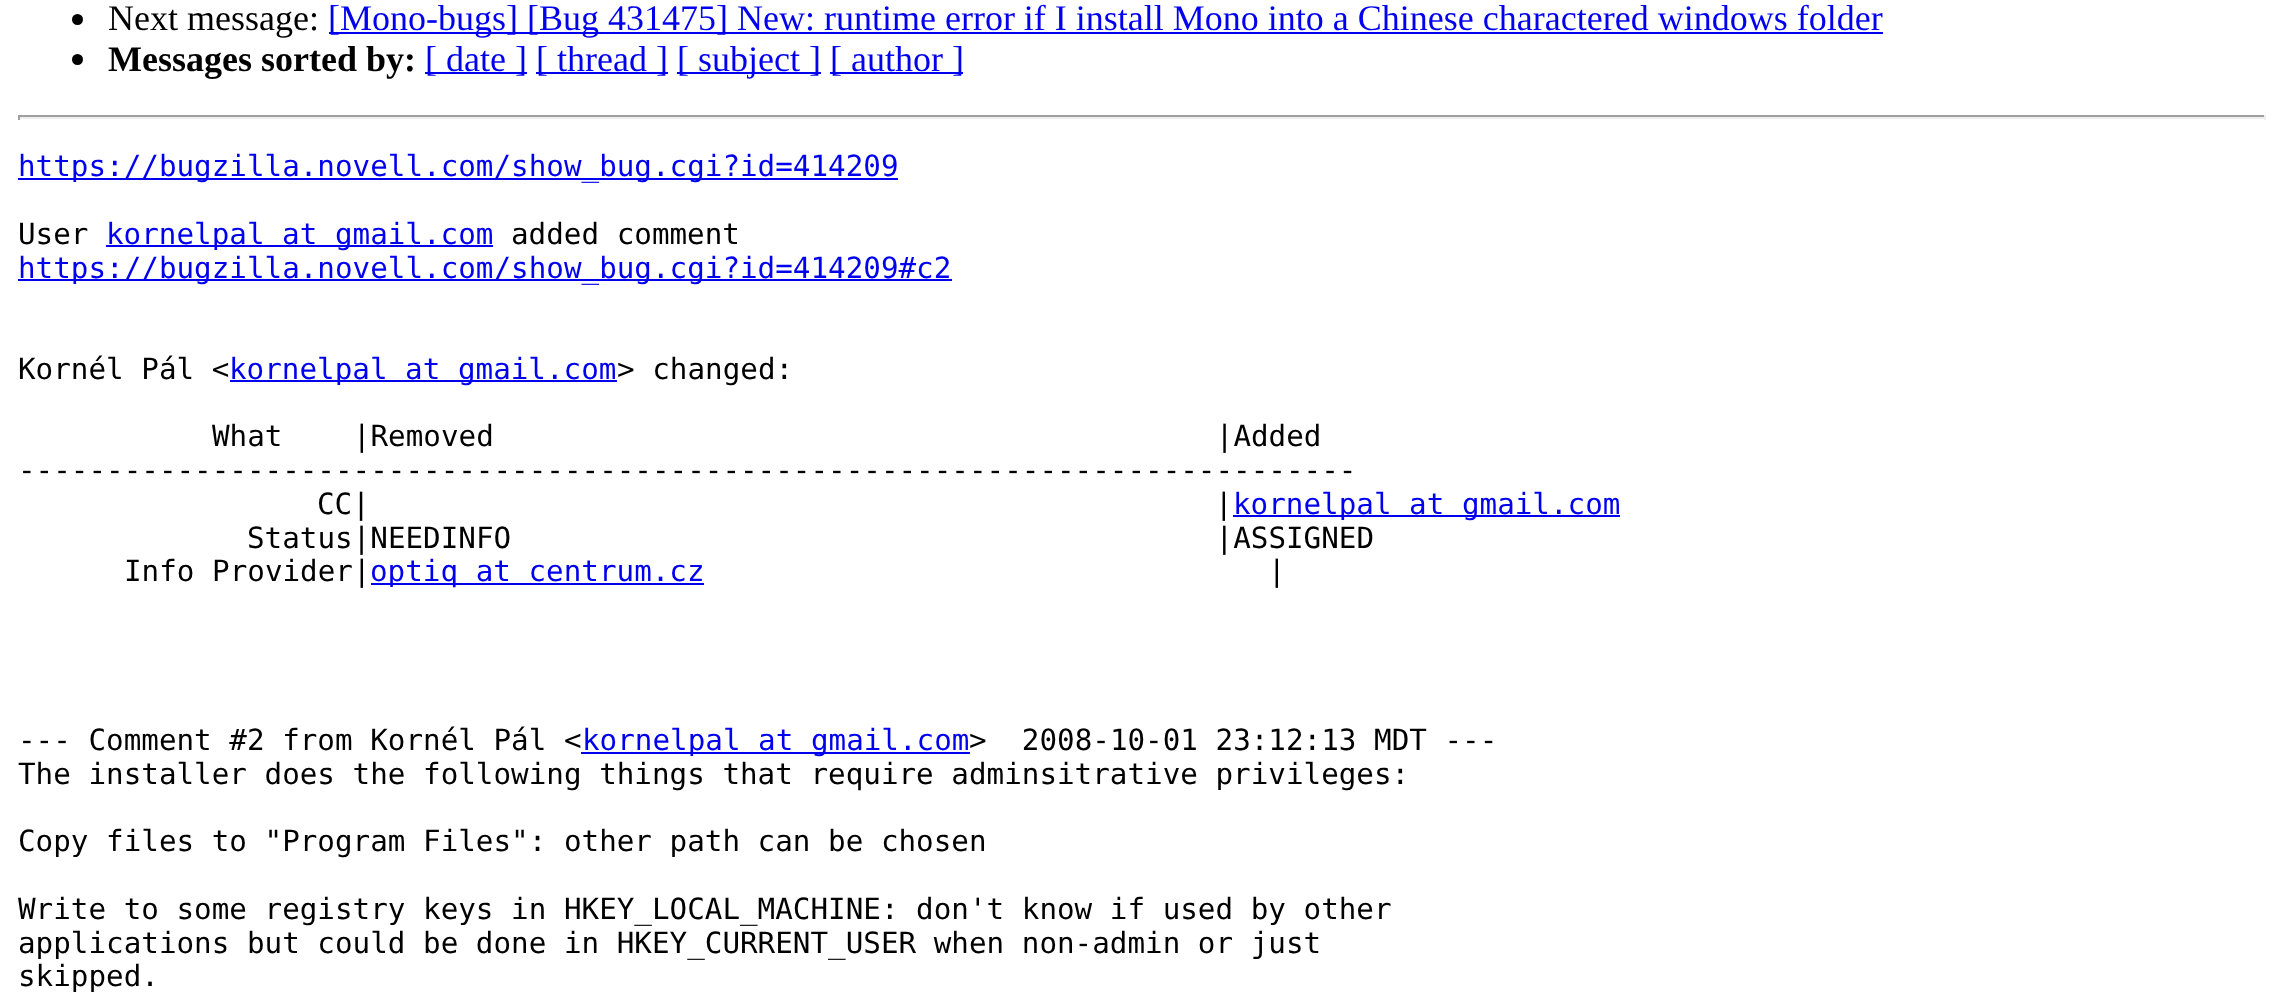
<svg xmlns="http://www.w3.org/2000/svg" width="2283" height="999">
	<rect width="100%" height="100%" fill="#FFFFFF" />
	<circle cx="77.5" cy="19.5" r="5.5" fill="#000000" />
	<text x="108" y="30" font-family="Liberation Serif" font-size="36" fill="#000000">Next message:</text>
	<rect x="329" y="32" width="1554" height="2" fill="#0000EE" />
	<text x="328" y="30" font-family="Liberation Serif" font-size="36" fill="#0000EE">[Mono-bugs] [Bug 431475] New: runtime error if I install Mono into a Chinese charactered windows folder</text>
	<circle cx="77.5" cy="59.5" r="5.5" fill="#000000" />
	<text x="108" y="71" font-family="Liberation Serif" font-size="36" font-weight="700" fill="#000000">Messages sorted by:</text>
	<rect x="425" y="72" width="102" height="2" fill="#0000EE" />
	<text x="425" y="71" font-family="Liberation Serif" font-size="36" fill="#0000EE">[ date ]</text>
	<rect x="536" y="72" width="132" height="2" fill="#0000EE" />
	<text x="536" y="71" font-family="Liberation Serif" font-size="36" fill="#0000EE">[ thread ]</text>
	<rect x="677" y="72" width="144" height="2" fill="#0000EE" />
	<text x="677" y="71" font-family="Liberation Serif" font-size="36" fill="#0000EE">[ subject ]</text>
	<rect x="830" y="72" width="133" height="2" fill="#0000EE" />
	<text x="830" y="71" font-family="Liberation Serif" font-size="36" fill="#0000EE">[ author ]</text>
	<rect x="18" y="115" width="2248" height="2" fill="#9F9F9F" />
	<rect x="2264" y="115" width="2" height="5" fill="#EEEEEE" />
	<rect x="18" y="117" width="2248" height="2" fill="#EEEEEE" />
	<rect x="18" y="115" width="2" height="5" fill="#9F9F9F" />
	<rect x="18" y="178" width="880" height="2" fill="#0000EE" />
	<text x="18" y="176" font-family="DejaVu Sans Mono" font-size="29.25" fill="#0000EE">https://bugzilla.novell.com/show_bug.cgi?id=414209</text>
	<text x="18" y="244" font-family="DejaVu Sans Mono" font-size="29.25" fill="#000000">User</text>
	<rect x="106" y="245" width="387" height="2" fill="#0000EE" />
	<text x="106" y="244" font-family="DejaVu Sans Mono" font-size="29.25" fill="#0000EE">kornelpal at gmail.com</text>
	<text x="511" y="244" font-family="DejaVu Sans Mono" font-size="29.25" fill="#000000">added comment</text>
	<rect x="18" y="279" width="934" height="2" fill="#0000EE" />
	<text x="18" y="278" font-family="DejaVu Sans Mono" font-size="29.25" fill="#0000EE">https://bugzilla.novell.com/show_bug.cgi?id=414209#c2</text>
	<text x="18" y="379" font-family="DejaVu Sans Mono" font-size="29.25" fill="#000000">Kornél Pál &lt;</text>
	<rect x="230" y="380" width="387" height="2" fill="#0000EE" />
	<text x="229" y="379" font-family="DejaVu Sans Mono" font-size="29.25" fill="#0000EE">kornelpal at gmail.com</text>
	<g font-family="DejaVu Sans Mono" font-size="29.25" fill="#000000">
		<text x="617" y="379">&gt; changed:</text>
		<text x="212" y="446" xml:space="preserve">What    |Removed                                         |Added</text>
		<text x="18" y="480">----------------------------------------------------------------------------</text>
		<text x="317" y="514" xml:space="preserve">CC|                                                |</text>
	</g>
	<rect x="1233" y="515" width="387" height="2" fill="#0000EE" />
	<text x="1233" y="514" font-family="DejaVu Sans Mono" font-size="29.25" fill="#0000EE">kornelpal at gmail.com</text>
	<g font-family="DejaVu Sans Mono" font-size="29.25" fill="#000000">
		<text x="247" y="548" xml:space="preserve">Status|NEEDINFO                                        |ASSIGNED</text>
		<text x="124" y="581">Info Provider|</text>
	</g>
	<rect x="371" y="583" width="333" height="2" fill="#0000EE" />
	<text x="370" y="581" font-family="DejaVu Sans Mono" font-size="29.25" fill="#0000EE">optiq at centrum.cz</text>
	<g font-family="DejaVu Sans Mono" font-size="29.25" fill="#000000">
		<text x="1268" y="581">|</text>
		<text x="18" y="750">--- Comment #2 from Kornél Pál &lt;</text>
	</g>
	<rect x="581" y="752" width="389" height="2" fill="#0000EE" />
	<text x="582" y="750" font-family="DejaVu Sans Mono" font-size="29.25" fill="#0000EE">kornelpal at gmail.com</text>
	<g font-family="DejaVu Sans Mono" font-size="29.25" fill="#000000">
		<text x="969" y="750" xml:space="preserve">&gt;  2008-10-01 23:12:13 MDT ---</text>
		<text x="18" y="784">The installer does the following things that require adminsitrative privileges:</text>
		<text x="18" y="851">Copy files to "Program Files": other path can be chosen</text>
		<text x="18" y="919">Write to some registry keys in HKEY_LOCAL_MACHINE: don't know if used by other</text>
		<text x="18" y="953">applications but could be done in HKEY_CURRENT_USER when non-admin or just</text>
		<text x="18" y="986">skipped.</text>
	</g>
</svg>
